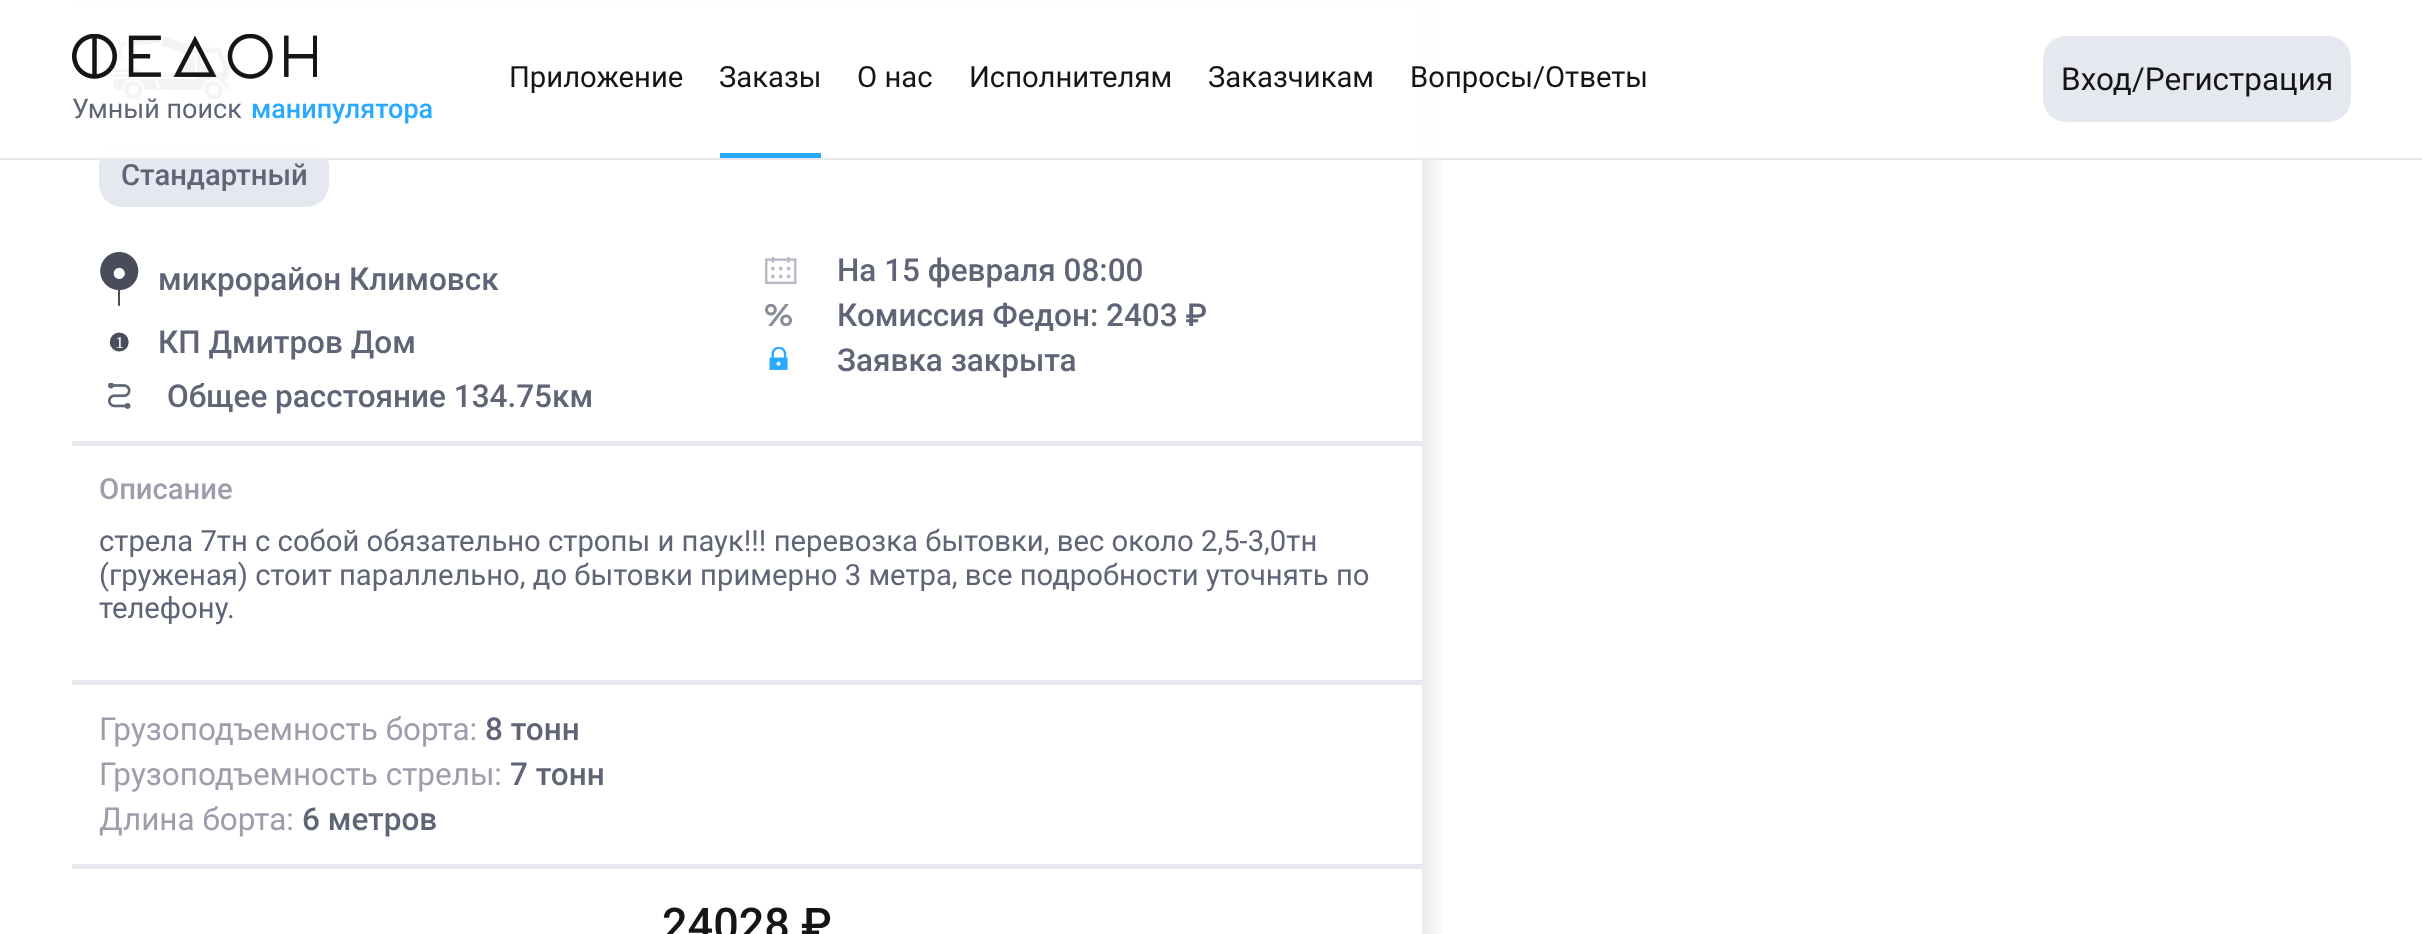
<svg xmlns="http://www.w3.org/2000/svg" width="2422" height="934">
	<defs>
		<clipPath id="clip1"><rect x="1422" y="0" width="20" height="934" /></clipPath>
	</defs>
	<rect width="100%" height="100%" fill="#FFFFFF" />
	<g clip-path="url(#clip1)">
		<rect x="83" y="-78" width="1350" height="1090" rx="45" fill="#151516" fill-opacity="0.1" filter="blur(11px)" />
	</g>
	<rect x="99" y="144" width="230" height="63" rx="23" fill="#E6E8EF" />
	<rect x="0" y="158" width="2422" height="2" fill="#E6E8EF" />
	<rect x="72" y="2" width="1350" height="2" fill="#E6E8EF" />
	<image x="113" y="34" width="116" height="66" href="assets/img2.png" />
	<rect x="70" y="0" width="1376" height="158" fill="#FFFFFF" fill-opacity="0.9" />
	<text x="509" y="87" font-family="Roboto" font-size="29.25" fill="#151516">Приложение</text>
	<rect x="720" y="153" width="101" height="5" fill="#29AAFF" />
	<g font-family="Roboto" font-size="29.25" fill="#151516">
		<text x="719" y="87">Заказы</text>
		<text x="857" y="87">О нас</text>
		<text x="969" y="87">Исполнителям</text>
		<text x="1208" y="87">Заказчикам</text>
		<text x="1410" y="87">Вопросы/Ответы</text>
	</g>
	<image x="72" y="34" width="245" height="45" href="assets/img1.png" />
	<text x="72" y="118" font-family="Roboto" font-size="27" fill="#5F6477">Умный поиск</text>
	<text x="251" y="118" font-family="Roboto" font-size="27" font-weight="500" fill="#29AAFF">манипулятора</text>
	<rect x="2043" y="36" width="308" height="86" rx="23" fill="#E6E8EF" />
	<text x="2061" y="90" font-family="Roboto" font-size="31.5" fill="#151516">Вход/Регистрация</text>
	<text x="121" y="185" font-family="Roboto" font-size="29.25" font-weight="500" fill="#5F6477">Стандартный</text>
	<image x="100" y="252" width="39" height="54" href="assets/img3.png" />
	<text x="158" y="290" font-family="Roboto" font-size="31.5" font-weight="500" fill="#5F6477">микрорайон Климовск</text>
	<image x="109" y="332" width="20" height="20" href="assets/img4.png" />
	<text x="158" y="353" font-family="Roboto" font-size="31.5" font-weight="500" fill="#5F6477">КП Дмитров Дом</text>
	<image x="108" y="383" width="23" height="26" href="assets/img5.png" />
	<text x="167" y="407" font-family="Roboto" font-size="31.5" font-weight="500" fill="#5F6477">Общее расстояние 134.75км</text>
	<image x="765" y="257" width="32" height="27" href="assets/img6.png" />
	<text x="837" y="281" font-family="Roboto" font-size="31.5" font-weight="500" fill="#5F6477">На 15 февраля 08:00</text>
	<image x="765" y="304" width="27" height="22" href="assets/img7.png" />
	<text x="837" y="326" font-family="Roboto" font-size="31.5" font-weight="500" fill="#5F6477">Комиссия Федон: 2403 ₽</text>
	<image x="769" y="347" width="19" height="23" href="assets/img8.png" />
	<text x="837" y="371" font-family="Roboto" font-size="31.5" font-weight="500" fill="#5F6477">Заявка закрыта</text>
	<rect x="72" y="441" width="1350" height="5" fill="#E6E8EF" />
	<text x="99" y="499" font-family="Roboto" font-size="29.25" font-weight="500" fill="#9C9FAB">Описание</text>
	<g font-family="Roboto" font-size="29.25" fill="#5F6477">
		<text x="99" y="551">стрела 7тн с собой обязательно стропы и паук!!! перевозка бытовки, вес около 2,5-3,0тн</text>
		<text x="99" y="585">(груженая) стоит параллельно, до бытовки примерно 3 метра, все подробности уточнять по</text>
		<text x="99" y="618">телефону.</text>
	</g>
	<rect x="72" y="680" width="1350" height="5" fill="#E6E8EF" />
	<text x="99" y="740" font-family="Roboto" font-size="31.5" fill="#9C9FAB">Грузоподъемность борта:</text>
	<text x="485" y="740" font-family="Roboto" font-size="31.5" font-weight="500" fill="#5F6477">8 тонн</text>
	<text x="99" y="785" font-family="Roboto" font-size="31.5" fill="#9C9FAB">Грузоподъемность стрелы:</text>
	<text x="510" y="785" font-family="Roboto" font-size="31.5" font-weight="500" fill="#5F6477">7 тонн</text>
	<text x="99" y="830" font-family="Roboto" font-size="31.5" fill="#9C9FAB">Длина борта:</text>
	<text x="302" y="830" font-family="Roboto" font-size="31.5" font-weight="500" fill="#5F6477">6 метров</text>
	<rect x="72" y="864" width="1350" height="5" fill="#E6E8EF" />
	<text x="662" y="940" font-family="Roboto" font-size="45" font-weight="500" fill="#151516">24028 ₽</text>
</svg>
